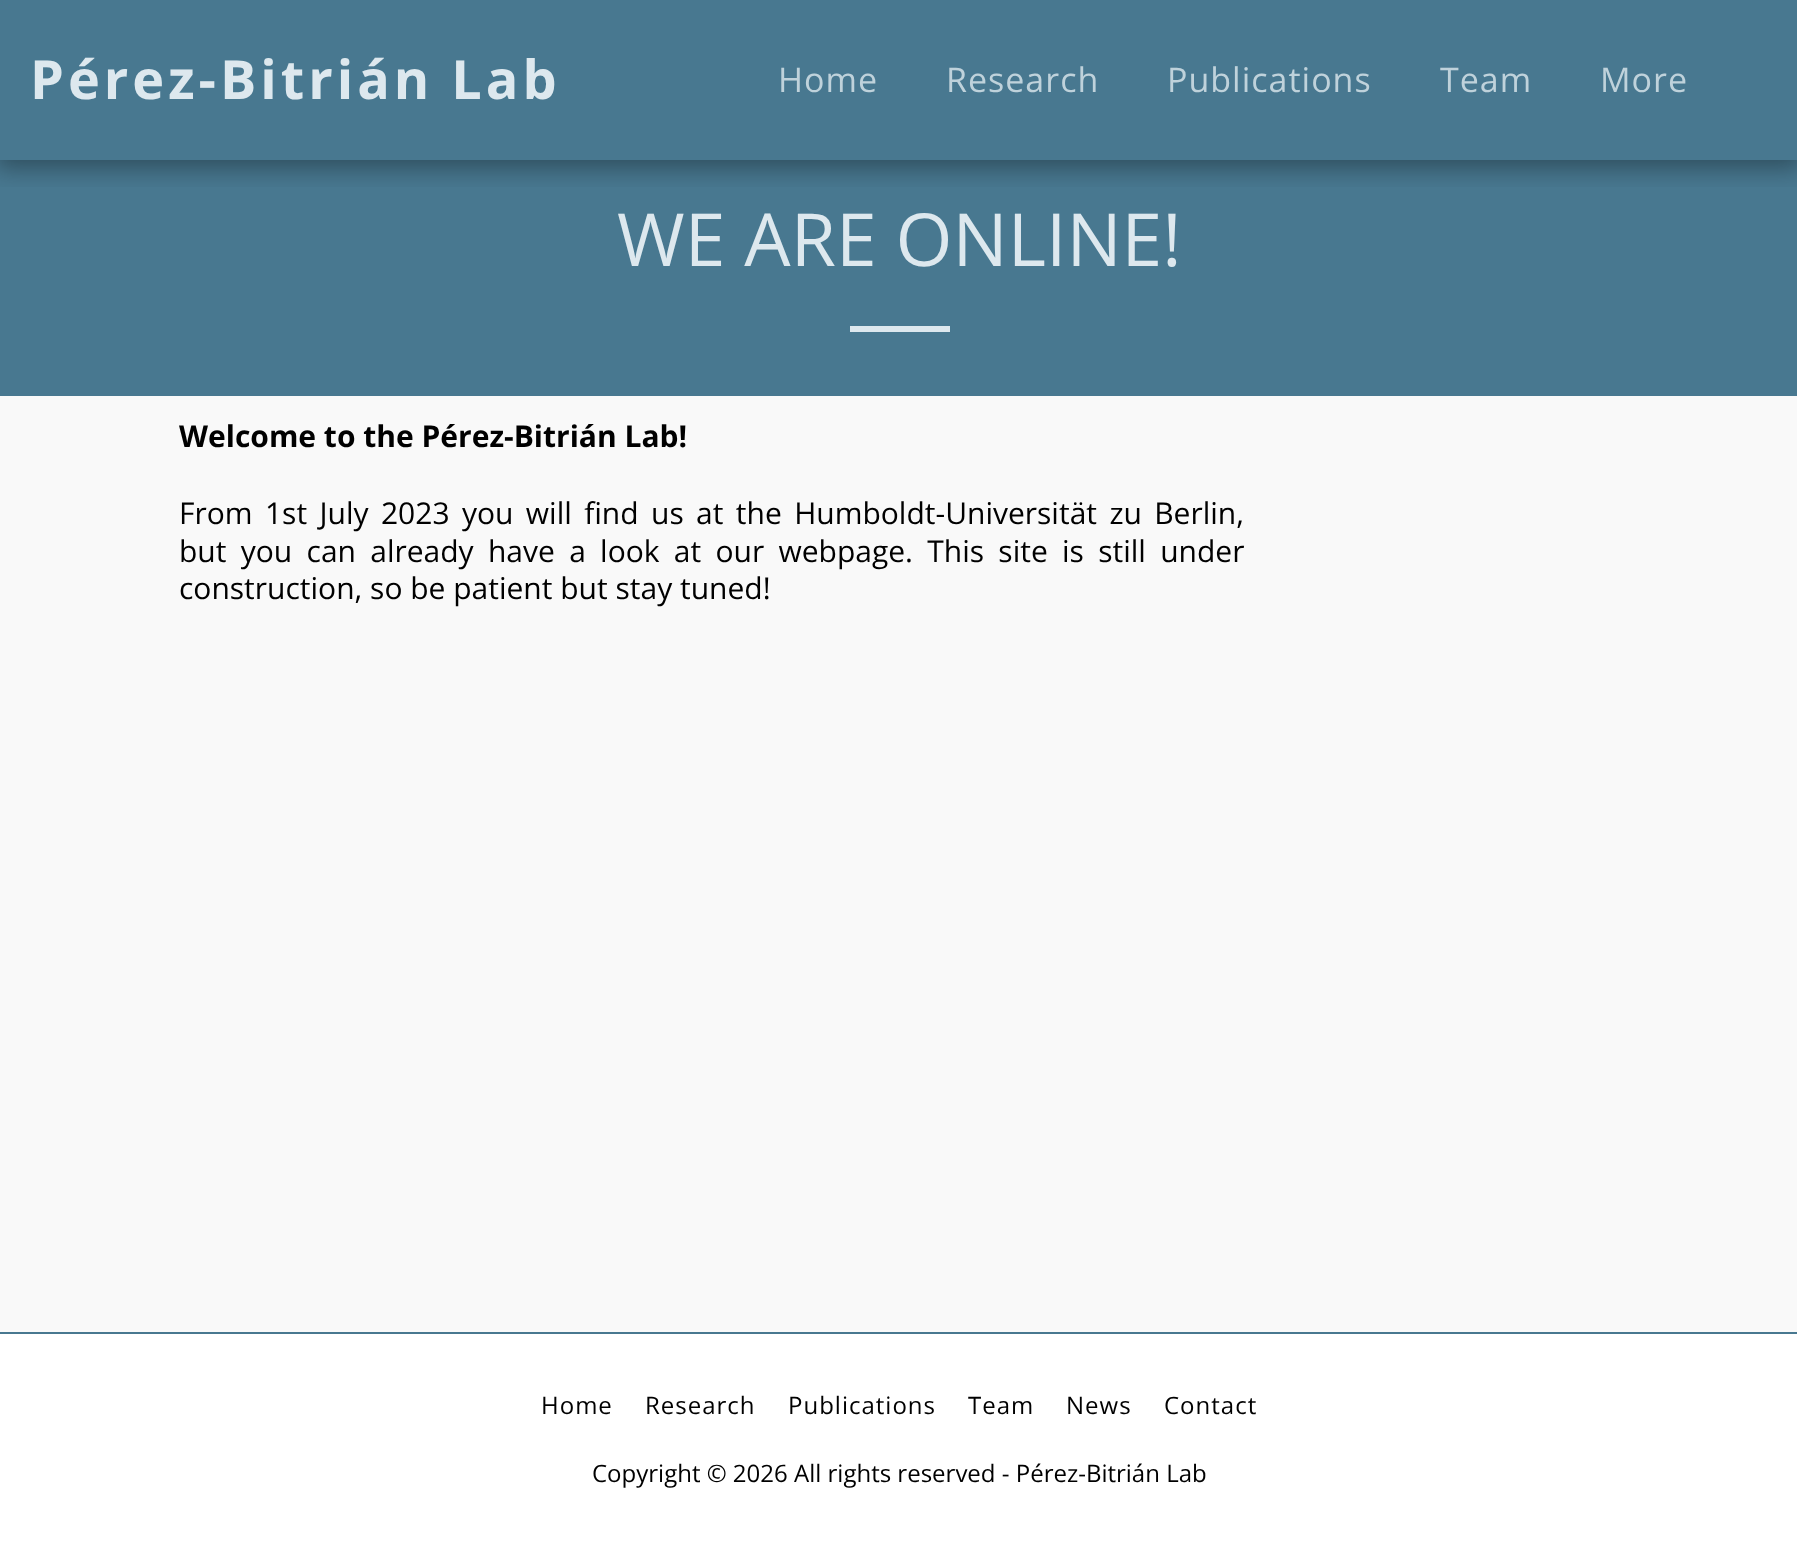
<svg xmlns="http://www.w3.org/2000/svg" width="1797" height="1550">
	<defs>
		<clipPath id="clip1"><rect x="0" y="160" width="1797" height="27" /></clipPath>
	</defs>
	<rect width="100%" height="100%" fill="#487890" />
	<g clip-path="url(#clip1)">
		<rect x="-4" y="0" width="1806" height="168" fill="#000000" fill-opacity="0.35" filter="blur(12px)" />
	</g>
	<text x="30" y="99" font-family="Open Sans" font-size="54" font-weight="700" letter-spacing="4" fill="#DDE8EE">Pérez-Bitrián Lab</text>
	<g font-family="Open Sans" font-size="34" letter-spacing="1" fill="#BFD2DB">
		<text x="778" y="92">Home</text>
		<text x="946" y="92">Research</text>
		<text x="1167" y="92">Publications</text>
		<text x="1440" y="92">Team</text>
		<text x="1600" y="92">More</text>
	</g>
	<rect x="0" y="396" width="1797" height="936" fill="#F9F9F9" />
	<text x="617" y="266" font-family="Open Sans" font-size="73.25" fill="#DDE8EE">WE ARE ONLINE!</text>
	<rect x="850" y="326" width="100" height="6" fill="#DDE8EE" />
	<text x="179" y="447" font-family="Open Sans" font-size="30" font-weight="700" fill="#000000">Welcome to the Pérez-Bitrián Lab!</text>
	<g font-family="Open Sans" font-size="30" fill="#000000">
		<text x="179" y="524" word-spacing="4.6">From 1st July 2023 you will find us at the Humboldt-Universität zu Berlin,</text>
		<text x="179" y="562" word-spacing="6.5">but you can already have a look at our webpage. This site is still under</text>
		<text x="179" y="599">construction, so be patient but stay tuned!</text>
	</g>
	<rect x="0" y="1334" width="1797" height="216" fill="#FFFFFF" />
	<g font-family="Open Sans" font-size="24" letter-spacing="1" fill="#000000">
		<text x="541" y="1414">Home</text>
		<text x="645" y="1414">Research</text>
		<text x="788" y="1414">Publications</text>
		<text x="968" y="1414">Team</text>
		<text x="1066" y="1414">News</text>
		<text x="1164" y="1414">Contact</text>
	</g>
	<text x="592" y="1482" font-family="Open Sans" font-size="24" fill="#000000">Copyright © 2026 All rights reserved - Pérez-Bitrián Lab</text>
</svg>
